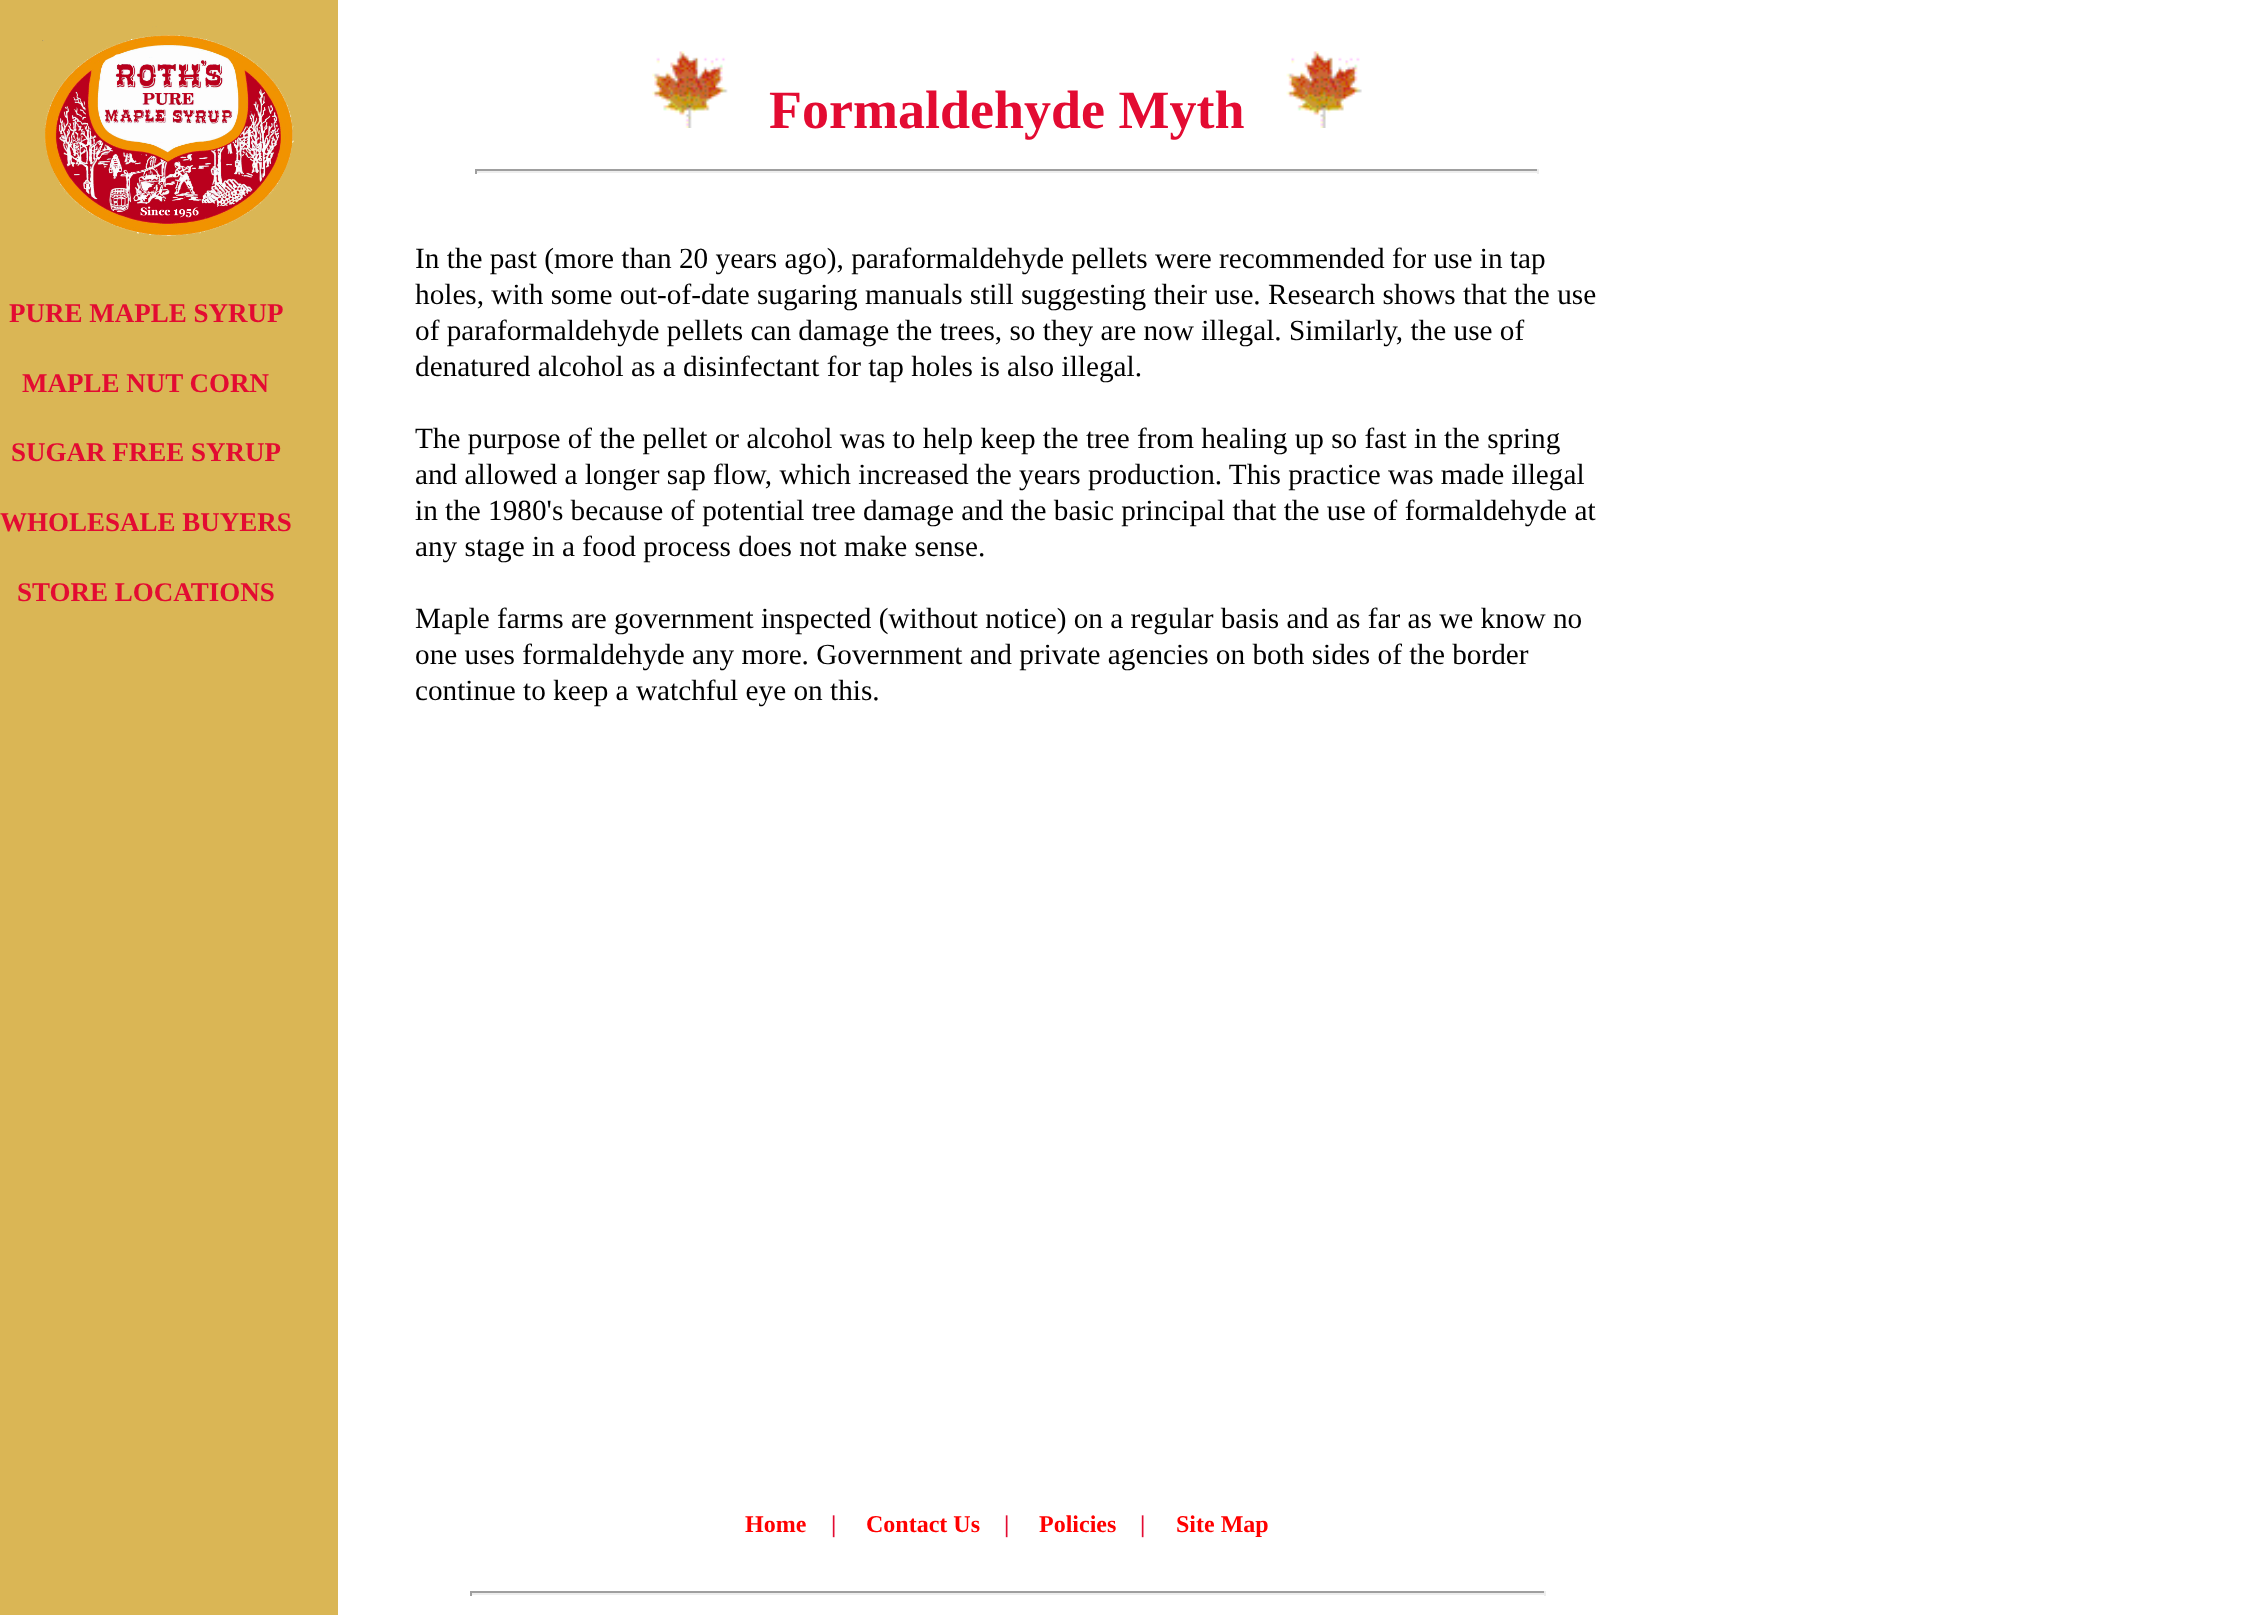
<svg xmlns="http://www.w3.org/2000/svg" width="2250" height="1615">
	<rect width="100%" height="100%" fill="#FFFFFF" />
	<rect x="0" y="0" width="338" height="1615" fill="#DAB655" />
	<image x="42" y="26" width="252" height="210" href="assets/img1.png" />
	<g font-family="Liberation Serif" font-size="27" font-weight="700" fill="#E30B32">
		<text x="9" y="322">PURE MAPLE SYRUP</text>
		<text x="22" y="392">MAPLE NUT CORN</text>
		<text x="11" y="461">SUGAR FREE SYRUP</text>
		<text x="0" y="531">WHOLESALE BUYERS</text>
		<text x="17" y="601">STORE LOCATIONS</text>
	</g>
	<image x="652" y="51" width="76" height="77" href="assets/img2.png" />
	<text x="769" y="128" font-family="Liberation Serif" font-size="54" font-weight="700" fill="#E30B32">Formaldehyde Myth</text>
	<image x="1286" y="51" width="76" height="77" href="assets/img3.png" />
	<rect x="475" y="169" width="1064" height="2" fill="#9F9F9F" />
	<rect x="1537" y="169" width="2" height="5" fill="#EEEEEE" />
	<rect x="475" y="171" width="1064" height="2" fill="#EEEEEE" />
	<rect x="475" y="169" width="2" height="5" fill="#9F9F9F" />
	<g font-family="Liberation Serif" font-size="29.25" fill="#000000">
		<text x="415" y="268">In the past (more than 20 years ago), paraformaldehyde pellets were recommended for use in tap</text>
		<text x="415" y="304">holes, with some out-of-date sugaring manuals still suggesting their use. Research shows that the use</text>
		<text x="415" y="340">of paraformaldehyde pellets can damage the trees, so they are now illegal. Similarly, the use of</text>
		<text x="415" y="376">denatured alcohol as a disinfectant for tap holes is also illegal.</text>
		<text x="415" y="448">The purpose of the pellet or alcohol was to help keep the tree from healing up so fast in the spring</text>
		<text x="415" y="484">and allowed a longer sap flow, which increased the years production. This practice was made illegal</text>
		<text x="415" y="520">in the 1980's because of potential tree damage and the basic principal that the use of formaldehyde at</text>
		<text x="415" y="556">any stage in a food process does not make sense.</text>
		<text x="415" y="628">Maple farms are government inspected (without notice) on a regular basis and as far as we know no</text>
		<text x="415" y="664">one uses formaldehyde any more. Government and private agencies on both sides of the border</text>
		<text x="415" y="700">continue to keep a watchful eye on this.</text>
	</g>
	<text x="745" y="1532" font-family="Liberation Serif" font-size="24" font-weight="700" fill="#FF0000">Home</text>
	<text x="831" y="1532" font-family="Liberation Serif" font-size="24" font-weight="700" fill="#E30B32">|</text>
	<text x="866" y="1532" font-family="Liberation Serif" font-size="24" font-weight="700" fill="#FF0000">Contact Us</text>
	<text x="1004" y="1532" font-family="Liberation Serif" font-size="24" font-weight="700" fill="#E30B32">|</text>
	<text x="1039" y="1532" font-family="Liberation Serif" font-size="24" font-weight="700" fill="#FF0000">Policies</text>
	<text x="1140" y="1532" font-family="Liberation Serif" font-size="24" font-weight="700" fill="#E30B32">|</text>
	<text x="1176" y="1532" font-family="Liberation Serif" font-size="24" font-weight="700" fill="#FF0000">Site Map</text>
	<rect x="470" y="1591" width="1076" height="2" fill="#9F9F9F" />
	<rect x="1544" y="1591" width="2" height="5" fill="#EEEEEE" />
	<rect x="470" y="1593" width="1076" height="2" fill="#EEEEEE" />
	<rect x="470" y="1591" width="2" height="5" fill="#9F9F9F" />
</svg>
